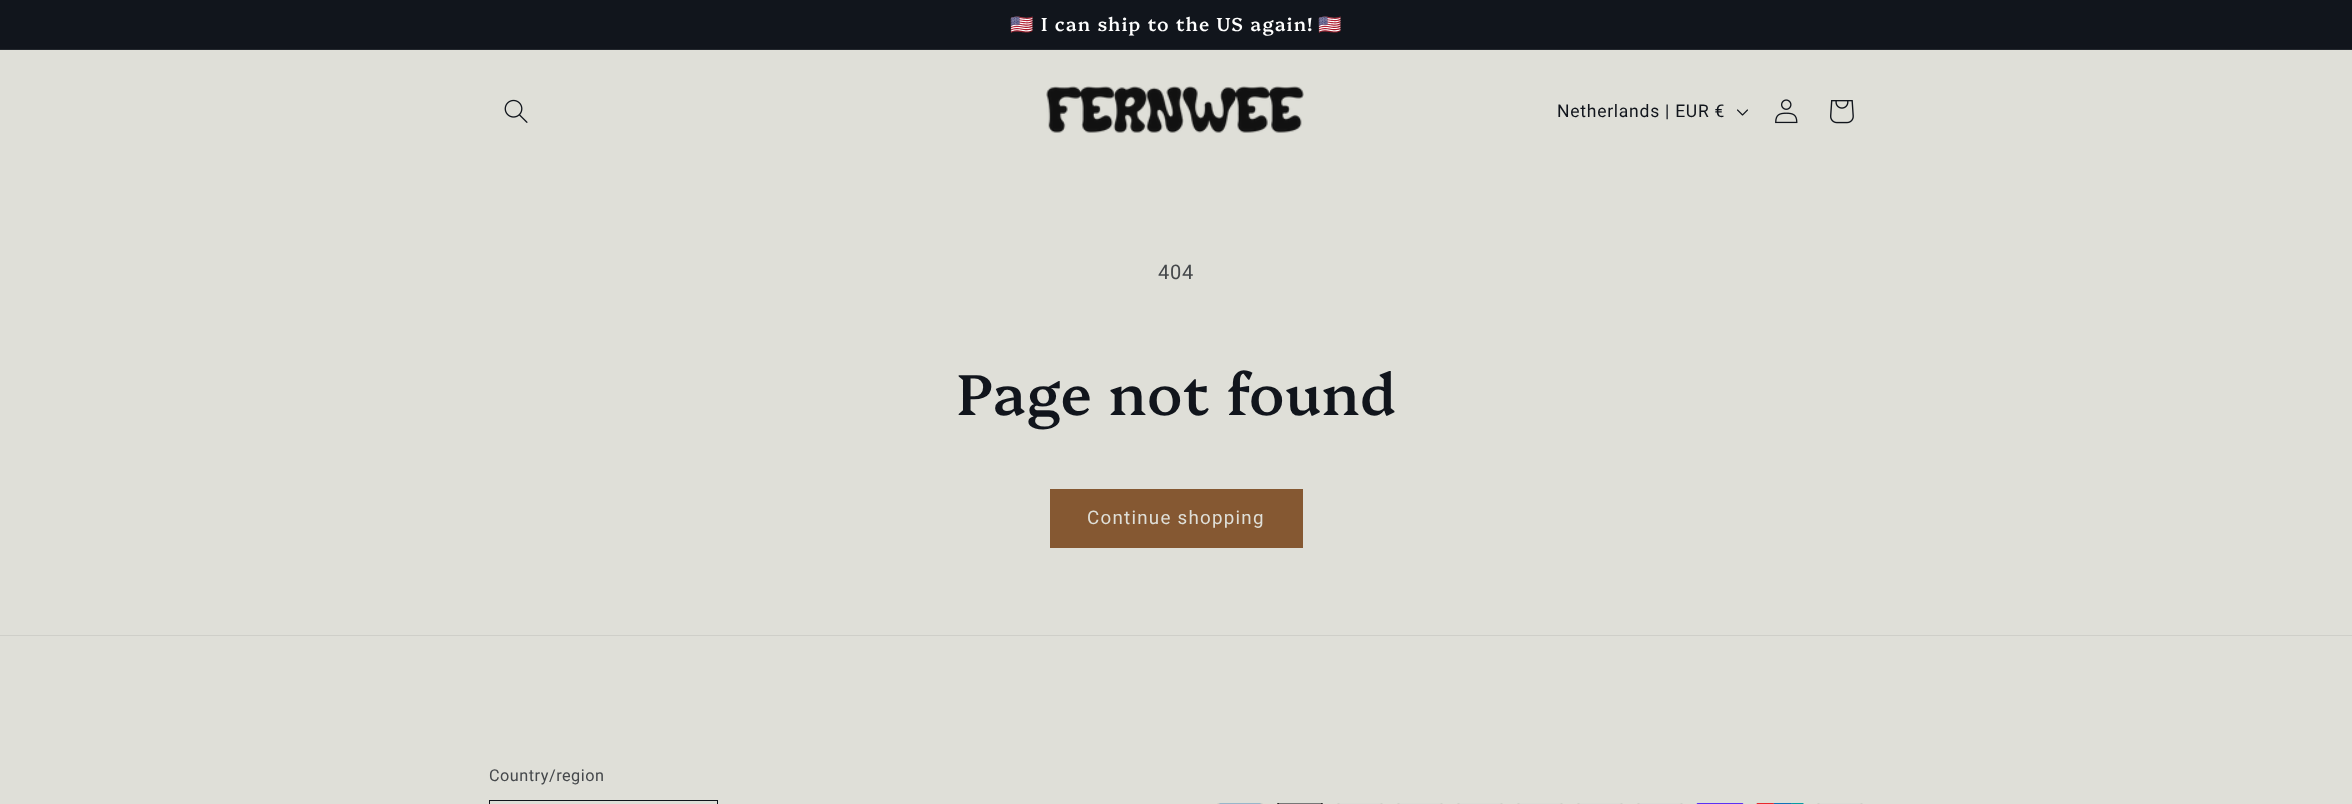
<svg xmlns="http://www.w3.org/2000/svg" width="2352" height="804">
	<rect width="100%" height="100%" fill="#DFDFD8" />
	<rect x="0" y="0" width="2352" height="49" fill="#11151C" />
	<rect x="0" y="49" width="2352" height="1" fill="#24282E" />
	<text x="1010" y="31" font-family="Noto Color Emoji" font-size="18.75" letter-spacing="1.25" fill="#FFFFFF">🇺🇸</text>
	<text x="1041" y="31" font-family="Platypi" font-size="18.75" font-weight="500" letter-spacing="1.25" fill="#FFFFFF">I can ship to the US again!</text>
	<text x="1318" y="31" font-family="Noto Color Emoji" font-size="18.75" letter-spacing="1.25" fill="#FFFFFF">🇺🇸</text>
	<image x="504" y="99" width="24" height="24" href="assets/img1.png" />
	<image x="1046" y="86" width="258" height="47" href="assets/img2.png" />
	<text x="1557" y="117" font-family="Roboto" font-size="17.5" letter-spacing="0.75" fill="#11151C">Netherlands | EUR €</text>
	<image x="1737" y="109" width="11" height="7" href="assets/img3.png" />
	<image x="1775" y="99" width="23" height="25" href="assets/img4.png" />
	<image x="1830" y="100" width="24" height="24" href="assets/img5.png" />
	<text x="1158" y="279" font-family="Roboto" font-size="20" letter-spacing="0.75" fill="#45484B">404</text>
	<text x="957" y="415" font-family="Platypi" font-size="57.5" font-weight="500" letter-spacing="0.9" fill="#11151C">Page not found</text>
	<rect x="1050" y="489" width="253" height="59" fill="#855832" />
	<text x="1087" y="524" font-family="Roboto" font-size="18.75" letter-spacing="1.25" fill="#DFDFD8">Continue shopping</text>
	<rect x="0" y="635" width="2352" height="1" fill="#CFCFC9" />
	<text x="489" y="781" font-family="Roboto" font-size="16.25" letter-spacing="0.5" fill="#45484B">Country/region</text>
	<rect x="489.5" y="800.5" width="228" height="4" fill="none" stroke="#11151C" />
	<image x="1217" y="803" width="46" height="1" href="assets/img6.png" />
	<image x="1277" y="803" width="46" height="1" href="assets/img7.png" />
	<image x="1337" y="803" width="46" height="1" href="assets/img8.png" />
	<image x="1397" y="803" width="46" height="1" href="assets/img8.png" />
	<image x="1457" y="803" width="46" height="1" href="assets/img8.png" />
	<image x="1517" y="803" width="46" height="1" href="assets/img8.png" />
	<image x="1577" y="803" width="46" height="1" href="assets/img8.png" />
	<image x="1637" y="803" width="46" height="1" href="assets/img8.png" />
	<image x="1696" y="803" width="48" height="1" href="assets/img9.png" />
	<image x="1756" y="803" width="48" height="1" href="assets/img10.png" />
	<image x="1817" y="803" width="46" height="1" href="assets/img8.png" />
</svg>
